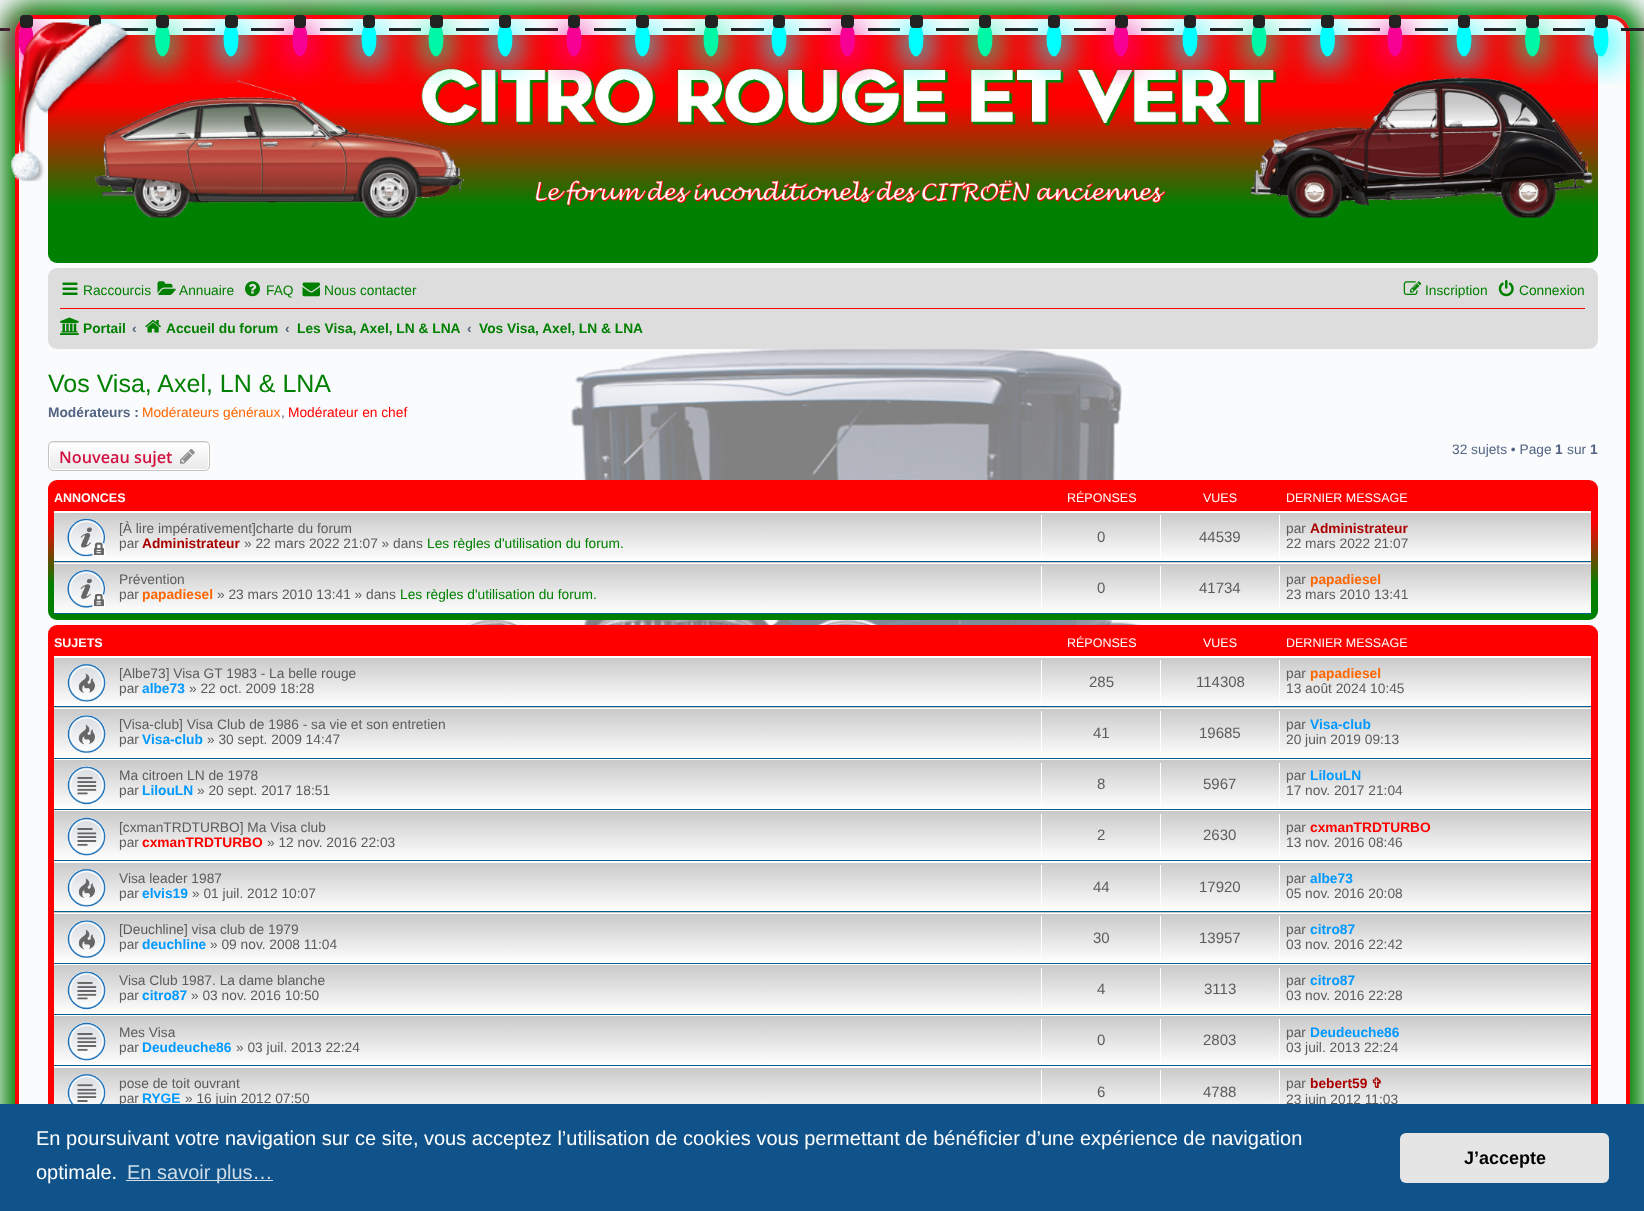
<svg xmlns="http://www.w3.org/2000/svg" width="1644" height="1211">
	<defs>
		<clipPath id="clip1"><path d="M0 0H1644V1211H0ZM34 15H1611C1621.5 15 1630 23.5 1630 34V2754C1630 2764.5 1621.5 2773 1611 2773H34C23.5 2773 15 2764.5 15 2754V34C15 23.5 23.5 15 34 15Z" clip-rule="evenodd" /></clipPath>
		<linearGradient id="g1" gradientUnits="userSpaceOnUse" x1="823" y1="35" x2="823" y2="263"><stop offset="0" stop-color="#FF0000" /><stop offset="0.3" stop-color="#FF0000" /><stop offset="0.75" stop-color="#008000" /><stop offset="1" stop-color="#008000" /></linearGradient>
		<clipPath id="clip2"><rect x="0" y="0" width="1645" height="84" /></clipPath>
		<clipPath id="clip3"><rect x="48" y="441" width="162" height="30" rx="5" /></clipPath>
		<linearGradient id="g2" gradientUnits="userSpaceOnUse" x1="129" y1="415" x2="129" y2="443"><stop offset="0" stop-color="#FFFFFF" /><stop offset="1" stop-color="#E9E9E9" /></linearGradient>
		<linearGradient id="g3" gradientUnits="userSpaceOnUse" x1="129" y1="443" x2="129" y2="470"><stop offset="0" stop-color="#FFFFFF" /><stop offset="1" stop-color="#E9E9E9" /></linearGradient>
		<linearGradient id="g4" gradientUnits="userSpaceOnUse" x1="823" y1="480" x2="823" y2="620"><stop offset="0" stop-color="#FF0000" /><stop offset="0.3" stop-color="#FF0000" /><stop offset="0.75" stop-color="#008000" /><stop offset="1" stop-color="#008000" /></linearGradient>
		<linearGradient id="g5" gradientUnits="userSpaceOnUse" x1="823" y1="464" x2="823" y2="513"><stop offset="0" stop-color="#C9C9C9" /><stop offset="1" stop-color="#FFFFFF" /></linearGradient>
		<linearGradient id="g6" gradientUnits="userSpaceOnUse" x1="823" y1="512" x2="823" y2="561"><stop offset="0" stop-color="#C9C9C9" /><stop offset="1" stop-color="#FFFFFF" /></linearGradient>
		<linearGradient id="g7" gradientUnits="userSpaceOnUse" x1="823" y1="561" x2="823" y2="610"><stop offset="0" stop-color="#C9C9C9" /><stop offset="1" stop-color="#FFFFFF" /></linearGradient>
		<linearGradient id="g8" gradientUnits="userSpaceOnUse" x1="823" y1="564" x2="823" y2="613"><stop offset="0" stop-color="#C9C9C9" /><stop offset="1" stop-color="#FFFFFF" /></linearGradient>
		<linearGradient id="g9" gradientUnits="userSpaceOnUse" x1="822" y1="625" x2="823" y2="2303"><stop offset="0" stop-color="#FF0000" /><stop offset="0.3" stop-color="#FF0000" /><stop offset="0.75" stop-color="#008000" /><stop offset="1" stop-color="#008000" /></linearGradient>
		<linearGradient id="g10" gradientUnits="userSpaceOnUse" x1="823" y1="609" x2="823" y2="658"><stop offset="0" stop-color="#C9C9C9" /><stop offset="1" stop-color="#FFFFFF" /></linearGradient>
		<linearGradient id="g11" gradientUnits="userSpaceOnUse" x1="823" y1="657" x2="823" y2="706"><stop offset="0" stop-color="#C9C9C9" /><stop offset="1" stop-color="#FFFFFF" /></linearGradient>
		<linearGradient id="g12" gradientUnits="userSpaceOnUse" x1="823" y1="706" x2="823" y2="755"><stop offset="0" stop-color="#C9C9C9" /><stop offset="1" stop-color="#FFFFFF" /></linearGradient>
		<linearGradient id="g13" gradientUnits="userSpaceOnUse" x1="823" y1="709" x2="823" y2="758"><stop offset="0" stop-color="#C9C9C9" /><stop offset="1" stop-color="#FFFFFF" /></linearGradient>
		<linearGradient id="g14" gradientUnits="userSpaceOnUse" x1="823" y1="760" x2="823" y2="809"><stop offset="0" stop-color="#C9C9C9" /><stop offset="1" stop-color="#FFFFFF" /></linearGradient>
		<linearGradient id="g15" gradientUnits="userSpaceOnUse" x1="823" y1="811" x2="823" y2="860"><stop offset="0" stop-color="#C9C9C9" /><stop offset="1" stop-color="#FFFFFF" /></linearGradient>
		<linearGradient id="g16" gradientUnits="userSpaceOnUse" x1="823" y1="814" x2="823" y2="863"><stop offset="0" stop-color="#C9C9C9" /><stop offset="1" stop-color="#FFFFFF" /></linearGradient>
		<linearGradient id="g17" gradientUnits="userSpaceOnUse" x1="823" y1="862" x2="823" y2="911"><stop offset="0" stop-color="#C9C9C9" /><stop offset="1" stop-color="#FFFFFF" /></linearGradient>
		<linearGradient id="g18" gradientUnits="userSpaceOnUse" x1="823" y1="911" x2="823" y2="960"><stop offset="0" stop-color="#C9C9C9" /><stop offset="1" stop-color="#FFFFFF" /></linearGradient>
		<linearGradient id="g19" gradientUnits="userSpaceOnUse" x1="823" y1="914" x2="823" y2="963"><stop offset="0" stop-color="#C9C9C9" /><stop offset="1" stop-color="#FFFFFF" /></linearGradient>
		<linearGradient id="g20" gradientUnits="userSpaceOnUse" x1="823" y1="965" x2="823" y2="1014"><stop offset="0" stop-color="#C9C9C9" /><stop offset="1" stop-color="#FFFFFF" /></linearGradient>
		<linearGradient id="g21" gradientUnits="userSpaceOnUse" x1="823" y1="1016" x2="823" y2="1065"><stop offset="0" stop-color="#C9C9C9" /><stop offset="1" stop-color="#FFFFFF" /></linearGradient>
		<linearGradient id="g22" gradientUnits="userSpaceOnUse" x1="823" y1="1019" x2="823" y2="1068"><stop offset="0" stop-color="#C9C9C9" /><stop offset="1" stop-color="#FFFFFF" /></linearGradient>
		<linearGradient id="g23" gradientUnits="userSpaceOnUse" x1="823" y1="1067" x2="823" y2="1116"><stop offset="0" stop-color="#C9C9C9" /><stop offset="1" stop-color="#FFFFFF" /></linearGradient>
	</defs>
	<rect width="100%" height="100%" fill="#F5F7FA" />
	<image x="464" y="349" width="678" height="276" href="assets/img1.png" />
	<g clip-path="url(#clip1)">
		<rect x="3" y="3" width="1640" height="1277" rx="31" fill="#008000" filter="blur(12.5px)" />
	</g>
	<rect x="0" y="28" width="10" height="3" fill="#222222" />
	<rect x="17" y="17" width="1611" height="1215" rx="17" fill="#FFFFFF" fill-opacity="0.5" stroke="#FF0000" stroke-width="4" />
	<rect x="48" y="35" width="1550" height="228" rx="9" fill="url(#g1)" />
	<g clip-path="url(#clip2)">
		<rect x="15" y="24" width="23" height="42" rx="11.5" fill="#F70094" filter="blur(15px)" />
	</g>
	<ellipse cx="26" cy="39" rx="7.5" ry="17.5" fill="#F70094" />
	<rect x="20" y="15" width="13" height="13" rx="4" fill="#222222" />
	<image x="95" y="68" width="1498" height="150" href="assets/img3.png" />
	<g clip-path="url(#clip2)">
		<rect x="84" y="24" width="22" height="42" rx="11" fill="#00FFFF" filter="blur(15px)" />
	</g>
	<rect x="89" y="15" width="12" height="13" rx="4" fill="#222222" />
	<rect x="115" y="28" width="33" height="3" fill="#222222" />
	<g clip-path="url(#clip2)">
		<rect x="151" y="24" width="23" height="42" rx="11.5" fill="#00F7A5" filter="blur(15px)" />
	</g>
	<ellipse cx="162.5" cy="39" rx="7.5" ry="17.5" fill="#00F7A5" />
	<rect x="156" y="15" width="13" height="13" rx="4" fill="#222222" />
	<rect x="183" y="28" width="32" height="3" fill="#222222" />
	<g clip-path="url(#clip2)">
		<rect x="220" y="24" width="23" height="42" rx="11.5" fill="#00FFFF" filter="blur(15px)" />
	</g>
	<ellipse cx="231" cy="39" rx="7.5" ry="17.5" fill="#00FFFF" />
	<rect x="225" y="15" width="13" height="13" rx="4" fill="#222222" />
	<rect x="251" y="28" width="33" height="3" fill="#222222" />
	<g clip-path="url(#clip2)">
		<rect x="289" y="24" width="22" height="42" rx="11" fill="#F70094" filter="blur(15px)" />
	</g>
	<ellipse cx="300" cy="39" rx="7.5" ry="17.5" fill="#F70094" />
	<rect x="294" y="15" width="12" height="13" rx="4" fill="#222222" />
	<rect x="320" y="28" width="33" height="3" fill="#222222" />
	<g clip-path="url(#clip2)">
		<rect x="358" y="24" width="22" height="42" rx="11" fill="#00FFFF" filter="blur(15px)" />
	</g>
	<ellipse cx="369" cy="39" rx="7.5" ry="17.5" fill="#00FFFF" />
	<rect x="363" y="15" width="12" height="13" rx="4" fill="#222222" />
	<rect x="389" y="28" width="32" height="3" fill="#222222" />
	<g clip-path="url(#clip2)">
		<rect x="425" y="24" width="23" height="42" rx="11.5" fill="#00F7A5" filter="blur(15px)" />
	</g>
	<ellipse cx="436" cy="39" rx="7.5" ry="17.5" fill="#00F7A5" />
	<rect x="430" y="15" width="13" height="13" rx="4" fill="#222222" />
	<rect x="456" y="28" width="33" height="3" fill="#222222" />
	<g clip-path="url(#clip2)">
		<rect x="494" y="24" width="22" height="42" rx="11" fill="#00FFFF" filter="blur(15px)" />
	</g>
	<ellipse cx="505" cy="39" rx="7.5" ry="17.5" fill="#00FFFF" />
	<rect x="499" y="15" width="12" height="13" rx="4" fill="#222222" />
	<rect x="525" y="28" width="33" height="3" fill="#222222" />
	<g clip-path="url(#clip2)">
		<rect x="563" y="24" width="22" height="42" rx="11" fill="#F70094" filter="blur(15px)" />
	</g>
	<ellipse cx="574" cy="39" rx="7.5" ry="17.5" fill="#F70094" />
	<rect x="568" y="15" width="12" height="13" rx="4" fill="#222222" />
	<rect x="594" y="28" width="32" height="3" fill="#222222" />
	<g clip-path="url(#clip2)">
		<rect x="631" y="24" width="23" height="42" rx="11.5" fill="#00FFFF" filter="blur(15px)" />
	</g>
	<ellipse cx="642.5" cy="39" rx="7.5" ry="17.5" fill="#00FFFF" />
	<rect x="636" y="15" width="13" height="13" rx="4" fill="#222222" />
	<rect x="663" y="28" width="32" height="3" fill="#222222" />
	<g clip-path="url(#clip2)">
		<rect x="700" y="24" width="23" height="42" rx="11.5" fill="#00F7A5" filter="blur(15px)" />
	</g>
	<ellipse cx="711" cy="39" rx="7.5" ry="17.5" fill="#00F7A5" />
	<rect x="705" y="15" width="13" height="13" rx="4" fill="#222222" />
	<rect x="731" y="28" width="33" height="3" fill="#222222" />
	<g clip-path="url(#clip2)">
		<rect x="768" y="24" width="22" height="42" rx="11" fill="#00FFFF" filter="blur(15px)" />
	</g>
	<ellipse cx="779" cy="39" rx="7.5" ry="17.5" fill="#00FFFF" />
	<rect x="773" y="15" width="12" height="13" rx="4" fill="#222222" />
	<rect x="799" y="28" width="32" height="3" fill="#222222" />
	<g clip-path="url(#clip2)">
		<rect x="836" y="24" width="23" height="42" rx="11.5" fill="#F70094" filter="blur(15px)" />
	</g>
	<ellipse cx="847.5" cy="39" rx="7.5" ry="17.5" fill="#F70094" />
	<rect x="841" y="15" width="13" height="13" rx="4" fill="#222222" />
	<rect x="868" y="28" width="32" height="3" fill="#222222" />
	<g clip-path="url(#clip2)">
		<rect x="905" y="24" width="23" height="42" rx="11.5" fill="#00FFFF" filter="blur(15px)" />
	</g>
	<ellipse cx="916" cy="39" rx="7.5" ry="17.5" fill="#00FFFF" />
	<rect x="910" y="15" width="13" height="13" rx="4" fill="#222222" />
	<rect x="936" y="28" width="33" height="3" fill="#222222" />
	<g clip-path="url(#clip2)">
		<rect x="974" y="24" width="22" height="42" rx="11" fill="#00F7A5" filter="blur(15px)" />
	</g>
	<ellipse cx="985" cy="39" rx="7.5" ry="17.5" fill="#00F7A5" />
	<rect x="979" y="15" width="12" height="13" rx="4" fill="#222222" />
	<rect x="1005" y="28" width="33" height="3" fill="#222222" />
	<g clip-path="url(#clip2)">
		<rect x="1043" y="24" width="22" height="42" rx="11" fill="#00FFFF" filter="blur(15px)" />
	</g>
	<ellipse cx="1054" cy="39" rx="7.5" ry="17.5" fill="#00FFFF" />
	<rect x="1048" y="15" width="12" height="13" rx="4" fill="#222222" />
	<rect x="1074" y="28" width="32" height="3" fill="#222222" />
	<g clip-path="url(#clip2)">
		<rect x="1110" y="24" width="23" height="42" rx="11.5" fill="#F70094" filter="blur(15px)" />
	</g>
	<ellipse cx="1121" cy="39" rx="7.5" ry="17.5" fill="#F70094" />
	<rect x="1115" y="15" width="13" height="13" rx="4" fill="#222222" />
	<rect x="1141" y="28" width="33" height="3" fill="#222222" />
	<g clip-path="url(#clip2)">
		<rect x="1179" y="24" width="22" height="42" rx="11" fill="#00FFFF" filter="blur(15px)" />
	</g>
	<ellipse cx="1190" cy="39" rx="7.5" ry="17.5" fill="#00FFFF" />
	<rect x="1184" y="15" width="12" height="13" rx="4" fill="#222222" />
	<rect x="1210" y="28" width="33" height="3" fill="#222222" />
	<g clip-path="url(#clip2)">
		<rect x="1248" y="24" width="22" height="42" rx="11" fill="#00F7A5" filter="blur(15px)" />
	</g>
	<ellipse cx="1259" cy="39" rx="7.5" ry="17.5" fill="#00F7A5" />
	<rect x="1253" y="15" width="12" height="13" rx="4" fill="#222222" />
	<rect x="1279" y="28" width="32" height="3" fill="#222222" />
	<g clip-path="url(#clip2)">
		<rect x="1316" y="24" width="23" height="42" rx="11.5" fill="#00FFFF" filter="blur(15px)" />
	</g>
	<ellipse cx="1327.5" cy="39" rx="7.5" ry="17.5" fill="#00FFFF" />
	<rect x="1321" y="15" width="13" height="13" rx="4" fill="#222222" />
	<rect x="1348" y="28" width="32" height="3" fill="#222222" />
	<g clip-path="url(#clip2)">
		<rect x="1384" y="24" width="22" height="42" rx="11" fill="#F70094" filter="blur(15px)" />
	</g>
	<ellipse cx="1395" cy="39" rx="7.5" ry="17.5" fill="#F70094" />
	<rect x="1389" y="15" width="12" height="13" rx="4" fill="#222222" />
	<rect x="1415" y="28" width="33" height="3" fill="#222222" />
	<g clip-path="url(#clip2)">
		<rect x="1453" y="24" width="22" height="42" rx="11" fill="#00FFFF" filter="blur(15px)" />
	</g>
	<ellipse cx="1464" cy="39" rx="7.5" ry="17.5" fill="#00FFFF" />
	<rect x="1458" y="15" width="12" height="13" rx="4" fill="#222222" />
	<rect x="1484" y="28" width="32" height="3" fill="#222222" />
	<g clip-path="url(#clip2)">
		<rect x="1521" y="24" width="23" height="42" rx="11.5" fill="#00F7A5" filter="blur(15px)" />
	</g>
	<ellipse cx="1532.5" cy="39" rx="7.5" ry="17.5" fill="#00F7A5" />
	<rect x="1526" y="15" width="13" height="13" rx="4" fill="#222222" />
	<rect x="1553" y="28" width="32" height="3" fill="#222222" />
	<g clip-path="url(#clip2)">
		<rect x="1590" y="24" width="23" height="42" rx="11.5" fill="#00FFFF" filter="blur(15px)" />
	</g>
	<ellipse cx="1601" cy="39" rx="7.5" ry="17.5" fill="#00FFFF" />
	<rect x="1595" y="15" width="13" height="13" rx="4" fill="#222222" />
	<rect x="1621" y="28" width="23" height="3" fill="#222222" />
	<rect x="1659" y="24" width="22" height="42" rx="11" fill="#F70094" filter="blur(15px)" />
	<image x="11" y="22" width="119" height="160" href="assets/img2.png" />
	<rect x="48" y="268" width="1550" height="81" rx="9" fill="#DDDDDD" />
	<image x="62" y="282" width="16" height="13" href="assets/img4.png" />
	<text x="83" y="295" font-family="Liberation Sans" font-size="13.75" fill="#008000">Raccourcis</text>
	<image x="157" y="281" width="19" height="14" href="assets/img5.png" />
	<text x="179" y="295" font-family="Liberation Sans" font-size="13.75" fill="#008000">Annuaire</text>
	<image x="245" y="281" width="15" height="16" href="assets/img6.png" />
	<text x="266" y="295" font-family="Liberation Sans" font-size="13.75" fill="#008000">FAQ</text>
	<image x="302" y="282" width="18" height="15" href="assets/img7.png" />
	<text x="324" y="295" font-family="Liberation Sans" font-size="13.75" fill="#008000">Nous contacter</text>
	<image x="1403" y="281" width="19" height="14" href="assets/img8.png" />
	<text x="1425" y="295" font-family="Liberation Sans" font-size="13.75" fill="#008000">Inscription</text>
	<image x="1498" y="280" width="16" height="17" href="assets/img9.png" />
	<text x="1519" y="295" font-family="Liberation Sans" font-size="13.75" fill="#008000">Connexion</text>
	<rect x="60" y="308" width="1525" height="1" fill="#FF0000" />
	<image x="60" y="317" width="19" height="18" href="assets/img10.png" />
	<text x="83" y="333" font-family="Liberation Sans" font-size="13.75" font-weight="700" fill="#008000">Portail</text>
	<text x="132" y="333" font-family="Liberation Sans" font-size="13.75" font-weight="700" fill="#536482">‹</text>
	<image x="145" y="320" width="16" height="13" href="assets/img11.png" />
	<text x="166" y="333" font-family="Liberation Sans" font-size="13.75" font-weight="700" fill="#008000">Accueil du forum</text>
	<text x="285" y="333" font-family="Liberation Sans" font-size="13.75" font-weight="700" fill="#536482">‹</text>
	<text x="297" y="333" font-family="Liberation Sans" font-size="13.75" font-weight="700" fill="#008000">Les Visa, Axel, LN &amp; LNA</text>
	<text x="467" y="333" font-family="Liberation Sans" font-size="13.75" font-weight="700" fill="#536482">‹</text>
	<text x="479" y="333" font-family="Liberation Sans" font-size="13.75" font-weight="700" fill="#008000">Vos Visa, Axel, LN &amp; LNA</text>
	<text x="48" y="392" font-family="Liberation Sans" font-size="25" fill="#008000">Vos Visa, Axel, LN &amp; LNA</text>
	<text x="48" y="417" font-family="Liberation Sans" font-size="13.75" font-weight="700" fill="#536482">Modérateurs :</text>
	<text x="142" y="417" font-family="Liberation Sans" font-size="13.75" fill="#FF6600">Modérateurs généraux</text>
	<text x="281" y="417" font-family="Liberation Sans" font-size="13.75" fill="#536482">,</text>
	<text x="288" y="417" font-family="Liberation Sans" font-size="13.75" fill="#FF0000">Modérateur en chef</text>
	<g clip-path="url(#clip3)">
		<rect x="48" y="441" width="162" height="2" fill="url(#g2)" />
		<rect x="48" y="443" width="162" height="27" fill="url(#g3)" />
	</g>
	<rect x="49.5" y="443.5" width="159" height="26" rx="3.5" fill="none" stroke="#FFFFFF" />
	<rect x="48.5" y="441.5" width="161" height="29" rx="4.5" fill="none" stroke="#C7C3BF" />
	<text x="59" y="463" font-family="Open Sans" font-size="16.25" font-weight="600" fill="#D31141">Nouveau sujet</text>
	<image x="180" y="449" width="15" height="15" href="assets/img12.png" />
	<text x="1452" y="454" font-family="Liberation Sans" font-size="13.75" fill="#536482">32 sujets • Page</text>
	<text x="1555" y="454" font-family="Liberation Sans" font-size="13.75" font-weight="700" fill="#536482">1</text>
	<text x="1567" y="454" font-family="Liberation Sans" font-size="13.75" fill="#536482">sur</text>
	<text x="1590" y="454" font-family="Liberation Sans" font-size="13.75" font-weight="700" fill="#536482">1</text>
	<rect x="48" y="480" width="1550" height="140" rx="9" fill="url(#g4)" />
	<text x="54" y="502" font-family="Liberation Sans" font-size="12.5" font-weight="700" fill="#FFFFFF">ANNONCES</text>
	<g font-family="Liberation Sans" font-size="12.5" fill="#FFFFFF">
		<text x="1067" y="502">RÉPONSES</text>
		<text x="1203" y="502">VUES</text>
		<text x="1286" y="502">DERNIER MESSAGE</text>
	</g>
	<rect x="54" y="512" width="1537" height="1" fill="url(#g5)" />
	<rect x="54" y="513" width="1537" height="48" fill="url(#g6)" />
	<rect x="54" y="562" width="1537" height="1" fill="url(#g7)" />
	<rect x="54" y="511" width="1537" height="1" fill="#FFFFFF" />
	<rect x="54" y="561" width="1537" height="1" fill="#00608F" />
	<image x="67" y="518" width="38" height="39" href="assets/img13.png" />
	<g font-family="Liberation Sans" font-size="13.75" fill="#5C5C5C">
		<text x="119" y="533">[À lire impérativement]charte du forum</text>
		<text x="119" y="548">par</text>
	</g>
	<text x="142" y="548" font-family="Liberation Sans" font-size="13.75" font-weight="700" fill="#AA0000">Administrateur</text>
	<text x="244" y="548" font-family="Liberation Sans" font-size="13.75" fill="#5C5C5C">» 22 mars 2022 21:07 » dans</text>
	<text x="427" y="548" font-family="Liberation Sans" font-size="13.75" fill="#008000">Les règles d'utilisation du forum.</text>
	<rect x="1041" y="515" width="1" height="44" fill="#FFFFFF" />
	<text x="1097" y="542" font-family="Liberation Sans" font-size="15" fill="#5C5C5C">0</text>
	<rect x="1160" y="515" width="1" height="44" fill="#FFFFFF" />
	<text x="1199" y="542" font-family="Liberation Sans" font-size="15" fill="#5C5C5C">44539</text>
	<rect x="1279" y="515" width="1" height="44" fill="#FFFFFF" />
	<text x="1286" y="533" font-family="Liberation Sans" font-size="13.75" fill="#5C5C5C">par</text>
	<text x="1310" y="533" font-family="Liberation Sans" font-size="13.75" font-weight="700" fill="#AA0000">Administrateur</text>
	<text x="1286" y="548" font-family="Liberation Sans" font-size="13.75" fill="#5C5C5C">22 mars 2022 21:07</text>
	<rect x="54" y="563" width="1537" height="1" fill="#FFFFFF" />
	<rect x="54" y="564" width="1537" height="49" fill="url(#g8)" />
	<rect x="54" y="613" width="1537" height="1" fill="#00608F" />
	<image x="67" y="570" width="38" height="38" href="assets/img14.png" />
	<g font-family="Liberation Sans" font-size="13.75" fill="#5C5C5C">
		<text x="119" y="584">Prévention</text>
		<text x="119" y="599">par</text>
	</g>
	<text x="142" y="599" font-family="Liberation Sans" font-size="13.75" font-weight="700" fill="#FF6600">papadiesel</text>
	<text x="217" y="599" font-family="Liberation Sans" font-size="13.75" fill="#5C5C5C">» 23 mars 2010 13:41 » dans</text>
	<text x="400" y="599" font-family="Liberation Sans" font-size="13.75" fill="#008000">Les règles d'utilisation du forum.</text>
	<rect x="1041" y="566" width="1" height="44" fill="#FFFFFF" />
	<text x="1097" y="593" font-family="Liberation Sans" font-size="15" fill="#5C5C5C">0</text>
	<rect x="1160" y="566" width="1" height="44" fill="#FFFFFF" />
	<text x="1199" y="593" font-family="Liberation Sans" font-size="15" fill="#5C5C5C">41734</text>
	<rect x="1279" y="566" width="1" height="44" fill="#FFFFFF" />
	<text x="1286" y="584" font-family="Liberation Sans" font-size="13.75" fill="#5C5C5C">par</text>
	<text x="1310" y="584" font-family="Liberation Sans" font-size="13.75" font-weight="700" fill="#FF6600">papadiesel</text>
	<text x="1286" y="599" font-family="Liberation Sans" font-size="13.75" fill="#5C5C5C">23 mars 2010 13:41</text>
	<rect x="48" y="625" width="1550" height="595" rx="9" fill="url(#g9)" />
	<text x="54" y="647" font-family="Liberation Sans" font-size="12.5" font-weight="700" fill="#FFFFFF">SUJETS</text>
	<g font-family="Liberation Sans" font-size="12.5" fill="#FFFFFF">
		<text x="1067" y="647">RÉPONSES</text>
		<text x="1203" y="647">VUES</text>
		<text x="1286" y="647">DERNIER MESSAGE</text>
	</g>
	<rect x="54" y="657" width="1537" height="1" fill="url(#g10)" />
	<rect x="54" y="658" width="1537" height="48" fill="url(#g11)" />
	<rect x="54" y="707" width="1537" height="1" fill="url(#g12)" />
	<rect x="54" y="656" width="1537" height="1" fill="#FFFFFF" />
	<rect x="54" y="706" width="1537" height="1" fill="#00608F" />
	<image x="67" y="664" width="39" height="38" href="assets/img15.png" />
	<g font-family="Liberation Sans" font-size="13.75" fill="#5C5C5C">
		<text x="119" y="678">[Albe73] Visa GT 1983 - La belle rouge</text>
		<text x="119" y="693">par</text>
	</g>
	<text x="142" y="693" font-family="Liberation Sans" font-size="13.75" font-weight="700" fill="#0099FF">albe73</text>
	<text x="189" y="693" font-family="Liberation Sans" font-size="13.75" fill="#5C5C5C">» 22 oct. 2009 18:28</text>
	<rect x="1041" y="660" width="1" height="44" fill="#FFFFFF" />
	<text x="1089" y="687" font-family="Liberation Sans" font-size="15" fill="#5C5C5C">285</text>
	<rect x="1160" y="660" width="1" height="44" fill="#FFFFFF" />
	<text x="1196" y="687" font-family="Liberation Sans" font-size="15" fill="#5C5C5C">114308</text>
	<rect x="1279" y="660" width="1" height="44" fill="#FFFFFF" />
	<text x="1286" y="678" font-family="Liberation Sans" font-size="13.75" fill="#5C5C5C">par</text>
	<text x="1310" y="678" font-family="Liberation Sans" font-size="13.75" font-weight="700" fill="#FF6600">papadiesel</text>
	<text x="1286" y="693" font-family="Liberation Sans" font-size="13.75" fill="#5C5C5C">13 août 2024 10:45</text>
	<rect x="54" y="708" width="1537" height="1" fill="#FFFFFF" />
	<rect x="54" y="709" width="1537" height="49" fill="url(#g13)" />
	<rect x="54" y="758" width="1537" height="1" fill="#00608F" />
	<image x="67" y="715" width="39" height="38" href="assets/img16.png" />
	<g font-family="Liberation Sans" font-size="13.75" fill="#5C5C5C">
		<text x="119" y="729">[Visa-club] Visa Club de 1986 - sa vie et son entretien</text>
		<text x="119" y="744">par</text>
	</g>
	<text x="142" y="744" font-family="Liberation Sans" font-size="13.75" font-weight="700" fill="#0099FF">Visa-club</text>
	<text x="207" y="744" font-family="Liberation Sans" font-size="13.75" fill="#5C5C5C">» 30 sept. 2009 14:47</text>
	<rect x="1041" y="711" width="1" height="44" fill="#FFFFFF" />
	<text x="1093" y="738" font-family="Liberation Sans" font-size="15" fill="#5C5C5C">41</text>
	<rect x="1160" y="711" width="1" height="44" fill="#FFFFFF" />
	<text x="1199" y="738" font-family="Liberation Sans" font-size="15" fill="#5C5C5C">19685</text>
	<rect x="1279" y="711" width="1" height="44" fill="#FFFFFF" />
	<text x="1286" y="729" font-family="Liberation Sans" font-size="13.75" fill="#5C5C5C">par</text>
	<text x="1310" y="729" font-family="Liberation Sans" font-size="13.75" font-weight="700" fill="#0099FF">Visa-club</text>
	<text x="1286" y="744" font-family="Liberation Sans" font-size="13.75" fill="#5C5C5C">20 juin 2019 09:13</text>
	<rect x="54" y="759" width="1537" height="1" fill="#FFFFFF" />
	<rect x="54" y="760" width="1537" height="49" fill="url(#g14)" />
	<rect x="54" y="809" width="1537" height="1" fill="#00608F" />
	<image x="67" y="766" width="39" height="39" href="assets/img17.png" />
	<g font-family="Liberation Sans" font-size="13.75" fill="#5C5C5C">
		<text x="119" y="780">Ma citroen LN de 1978</text>
		<text x="119" y="795">par</text>
	</g>
	<text x="142" y="795" font-family="Liberation Sans" font-size="13.75" font-weight="700" fill="#0099FF">LilouLN</text>
	<text x="197" y="795" font-family="Liberation Sans" font-size="13.75" fill="#5C5C5C">» 20 sept. 2017 18:51</text>
	<rect x="1041" y="763" width="1" height="43" fill="#FFFFFF" />
	<text x="1097" y="789" font-family="Liberation Sans" font-size="15" fill="#5C5C5C">8</text>
	<rect x="1160" y="763" width="1" height="43" fill="#FFFFFF" />
	<text x="1203" y="789" font-family="Liberation Sans" font-size="15" fill="#5C5C5C">5967</text>
	<rect x="1279" y="763" width="1" height="43" fill="#FFFFFF" />
	<text x="1286" y="780" font-family="Liberation Sans" font-size="13.75" fill="#5C5C5C">par</text>
	<text x="1310" y="780" font-family="Liberation Sans" font-size="13.75" font-weight="700" fill="#0099FF">LilouLN</text>
	<text x="1286" y="795" font-family="Liberation Sans" font-size="13.75" fill="#5C5C5C">17 nov. 2017 21:04</text>
	<rect x="54" y="810" width="1537" height="1" fill="#FFFFFF" />
	<rect x="54" y="811" width="1537" height="49" fill="url(#g15)" />
	<rect x="54" y="860" width="1537" height="1" fill="#00608F" />
	<image x="67" y="817" width="39" height="39" href="assets/img18.png" />
	<g font-family="Liberation Sans" font-size="13.75" fill="#5C5C5C">
		<text x="119" y="832">[cxmanTRDTURBO] Ma Visa club</text>
		<text x="119" y="847">par</text>
	</g>
	<text x="142" y="847" font-family="Liberation Sans" font-size="13.75" font-weight="700" fill="#FF0000">cxmanTRDTURBO</text>
	<text x="267" y="847" font-family="Liberation Sans" font-size="13.75" fill="#5C5C5C">» 12 nov. 2016 22:03</text>
	<rect x="1041" y="814" width="1" height="44" fill="#FFFFFF" />
	<text x="1097" y="840" font-family="Liberation Sans" font-size="15" fill="#5C5C5C">2</text>
	<rect x="1160" y="814" width="1" height="44" fill="#FFFFFF" />
	<text x="1203" y="840" font-family="Liberation Sans" font-size="15" fill="#5C5C5C">2630</text>
	<rect x="1279" y="814" width="1" height="44" fill="#FFFFFF" />
	<text x="1286" y="832" font-family="Liberation Sans" font-size="13.75" fill="#5C5C5C">par</text>
	<text x="1310" y="832" font-family="Liberation Sans" font-size="13.75" font-weight="700" fill="#FF0000">cxmanTRDTURBO</text>
	<text x="1286" y="847" font-family="Liberation Sans" font-size="13.75" fill="#5C5C5C">13 nov. 2016 08:46</text>
	<rect x="54" y="862" width="1537" height="1" fill="url(#g16)" />
	<rect x="54" y="863" width="1537" height="48" fill="url(#g17)" />
	<rect x="54" y="912" width="1537" height="1" fill="url(#g18)" />
	<rect x="54" y="861" width="1537" height="1" fill="#FFFFFF" />
	<rect x="54" y="911" width="1537" height="1" fill="#00608F" />
	<image x="67" y="869" width="39" height="38" href="assets/img15.png" />
	<g font-family="Liberation Sans" font-size="13.75" fill="#5C5C5C">
		<text x="119" y="883">Visa leader 1987</text>
		<text x="119" y="898">par</text>
	</g>
	<text x="142" y="898" font-family="Liberation Sans" font-size="13.75" font-weight="700" fill="#0099FF">elvis19</text>
	<text x="192" y="898" font-family="Liberation Sans" font-size="13.75" fill="#5C5C5C">» 01 juil. 2012 10:07</text>
	<rect x="1041" y="865" width="1" height="44" fill="#FFFFFF" />
	<text x="1093" y="892" font-family="Liberation Sans" font-size="15" fill="#5C5C5C">44</text>
	<rect x="1160" y="865" width="1" height="44" fill="#FFFFFF" />
	<text x="1199" y="892" font-family="Liberation Sans" font-size="15" fill="#5C5C5C">17920</text>
	<rect x="1279" y="865" width="1" height="44" fill="#FFFFFF" />
	<text x="1286" y="883" font-family="Liberation Sans" font-size="13.75" fill="#5C5C5C">par</text>
	<text x="1310" y="883" font-family="Liberation Sans" font-size="13.75" font-weight="700" fill="#0099FF">albe73</text>
	<text x="1286" y="898" font-family="Liberation Sans" font-size="13.75" fill="#5C5C5C">05 nov. 2016 20:08</text>
	<rect x="54" y="913" width="1537" height="1" fill="#FFFFFF" />
	<rect x="54" y="914" width="1537" height="49" fill="url(#g19)" />
	<rect x="54" y="963" width="1537" height="1" fill="#00608F" />
	<image x="67" y="920" width="39" height="38" href="assets/img16.png" />
	<g font-family="Liberation Sans" font-size="13.75" fill="#5C5C5C">
		<text x="119" y="934">[Deuchline] visa club de 1979</text>
		<text x="119" y="949">par</text>
	</g>
	<text x="142" y="949" font-family="Liberation Sans" font-size="13.75" font-weight="700" fill="#0099FF">deuchline</text>
	<text x="210" y="949" font-family="Liberation Sans" font-size="13.75" fill="#5C5C5C">» 09 nov. 2008 11:04</text>
	<rect x="1041" y="916" width="1" height="44" fill="#FFFFFF" />
	<text x="1093" y="943" font-family="Liberation Sans" font-size="15" fill="#5C5C5C">30</text>
	<rect x="1160" y="916" width="1" height="44" fill="#FFFFFF" />
	<text x="1199" y="943" font-family="Liberation Sans" font-size="15" fill="#5C5C5C">13957</text>
	<rect x="1279" y="916" width="1" height="44" fill="#FFFFFF" />
	<text x="1286" y="934" font-family="Liberation Sans" font-size="13.75" fill="#5C5C5C">par</text>
	<text x="1310" y="934" font-family="Liberation Sans" font-size="13.75" font-weight="700" fill="#0099FF">citro87</text>
	<text x="1286" y="949" font-family="Liberation Sans" font-size="13.75" fill="#5C5C5C">03 nov. 2016 22:42</text>
	<rect x="54" y="964" width="1537" height="1" fill="#FFFFFF" />
	<rect x="54" y="965" width="1537" height="49" fill="url(#g20)" />
	<rect x="54" y="1014" width="1537" height="1" fill="#00608F" />
	<image x="67" y="971" width="39" height="39" href="assets/img17.png" />
	<g font-family="Liberation Sans" font-size="13.75" fill="#5C5C5C">
		<text x="119" y="985">Visa Club 1987. La dame blanche</text>
		<text x="119" y="1000">par</text>
	</g>
	<text x="142" y="1000" font-family="Liberation Sans" font-size="13.75" font-weight="700" fill="#0099FF">citro87</text>
	<text x="191" y="1000" font-family="Liberation Sans" font-size="13.75" fill="#5C5C5C">» 03 nov. 2016 10:50</text>
	<rect x="1041" y="968" width="1" height="43" fill="#FFFFFF" />
	<text x="1097" y="994" font-family="Liberation Sans" font-size="15" fill="#5C5C5C">4</text>
	<rect x="1160" y="968" width="1" height="43" fill="#FFFFFF" />
	<text x="1204" y="994" font-family="Liberation Sans" font-size="15" fill="#5C5C5C">3113</text>
	<rect x="1279" y="968" width="1" height="43" fill="#FFFFFF" />
	<text x="1286" y="985" font-family="Liberation Sans" font-size="13.75" fill="#5C5C5C">par</text>
	<text x="1310" y="985" font-family="Liberation Sans" font-size="13.75" font-weight="700" fill="#0099FF">citro87</text>
	<text x="1286" y="1000" font-family="Liberation Sans" font-size="13.75" fill="#5C5C5C">03 nov. 2016 22:28</text>
	<rect x="54" y="1015" width="1537" height="1" fill="#FFFFFF" />
	<rect x="54" y="1016" width="1537" height="49" fill="url(#g21)" />
	<rect x="54" y="1065" width="1537" height="1" fill="#00608F" />
	<image x="67" y="1022" width="39" height="39" href="assets/img19.png" />
	<g font-family="Liberation Sans" font-size="13.75" fill="#5C5C5C">
		<text x="119" y="1037">Mes Visa</text>
		<text x="119" y="1052">par</text>
	</g>
	<text x="142" y="1052" font-family="Liberation Sans" font-size="13.75" font-weight="700" fill="#0099FF">Deudeuche86</text>
	<text x="236" y="1052" font-family="Liberation Sans" font-size="13.75" fill="#5C5C5C">» 03 juil. 2013 22:24</text>
	<rect x="1041" y="1019" width="1" height="44" fill="#FFFFFF" />
	<text x="1097" y="1045" font-family="Liberation Sans" font-size="15" fill="#5C5C5C">0</text>
	<rect x="1160" y="1019" width="1" height="44" fill="#FFFFFF" />
	<text x="1203" y="1045" font-family="Liberation Sans" font-size="15" fill="#5C5C5C">2803</text>
	<rect x="1279" y="1019" width="1" height="44" fill="#FFFFFF" />
	<text x="1286" y="1037" font-family="Liberation Sans" font-size="13.75" fill="#5C5C5C">par</text>
	<text x="1310" y="1037" font-family="Liberation Sans" font-size="13.75" font-weight="700" fill="#0099FF">Deudeuche86</text>
	<text x="1286" y="1052" font-family="Liberation Sans" font-size="13.75" fill="#5C5C5C">03 juil. 2013 22:24</text>
	<rect x="54" y="1067" width="1537" height="1" fill="url(#g22)" />
	<rect x="54" y="1068" width="1537" height="36" fill="url(#g23)" />
	<rect x="54" y="1066" width="1537" height="1" fill="#FFFFFF" />
	<image x="67" y="1074" width="39" height="30" href="assets/img20.png" />
	<g font-family="Liberation Sans" font-size="13.75" fill="#5C5C5C">
		<text x="119" y="1088">pose de toit ouvrant</text>
		<text x="119" y="1103">par</text>
	</g>
	<text x="142" y="1103" font-family="Liberation Sans" font-size="13.75" font-weight="700" fill="#0099FF">RYGE</text>
	<text x="185" y="1103" font-family="Liberation Sans" font-size="13.75" fill="#5C5C5C">» 16 juin 2012 07:50</text>
	<rect x="1041" y="1070" width="1" height="34" fill="#FFFFFF" />
	<text x="1097" y="1097" font-family="Liberation Sans" font-size="15" fill="#5C5C5C">6</text>
	<rect x="1160" y="1070" width="1" height="34" fill="#FFFFFF" />
	<text x="1203" y="1097" font-family="Liberation Sans" font-size="15" fill="#5C5C5C">4788</text>
	<rect x="1279" y="1070" width="1" height="34" fill="#FFFFFF" />
	<text x="1286" y="1088" font-family="Liberation Sans" font-size="13.75" fill="#5C5C5C">par</text>
	<text x="1310" y="1088" font-family="Liberation Sans" font-size="13.75" font-weight="700" fill="#AA0000">bebert59</text>
	<text x="1371" y="1088" font-family="DejaVu Sans" font-size="13.75" font-weight="700" fill="#AA0000">✞</text>
	<text x="1286" y="1104" font-family="Liberation Sans" font-size="13.75" fill="#5C5C5C">23 juin 2012 11:03</text>
	<rect x="0" y="1104" width="1644" height="107" fill="#0F538A" />
	<g font-family="Liberation Sans" font-size="20" fill="#FFFFFF">
		<text x="36" y="1145">En poursuivant votre navigation sur ce site, vous acceptez l’utilisation de cookies vous permettant de bénéficier d’une expérience de navigation</text>
		<text x="36" y="1179">optimale.</text>
	</g>
	<rect x="126" y="1180" width="147" height="1" fill="#CFDDE8" />
	<text x="127" y="1179" font-family="Liberation Sans" font-size="20" fill="#CFDDE8">En savoir plus…</text>
	<rect x="1400" y="1133" width="209" height="50" rx="6" fill="#E5E5E5" />
	<text x="1464" y="1164" font-family="Liberation Sans" font-size="18" font-weight="700" fill="#000000">J’accepte</text>
</svg>
